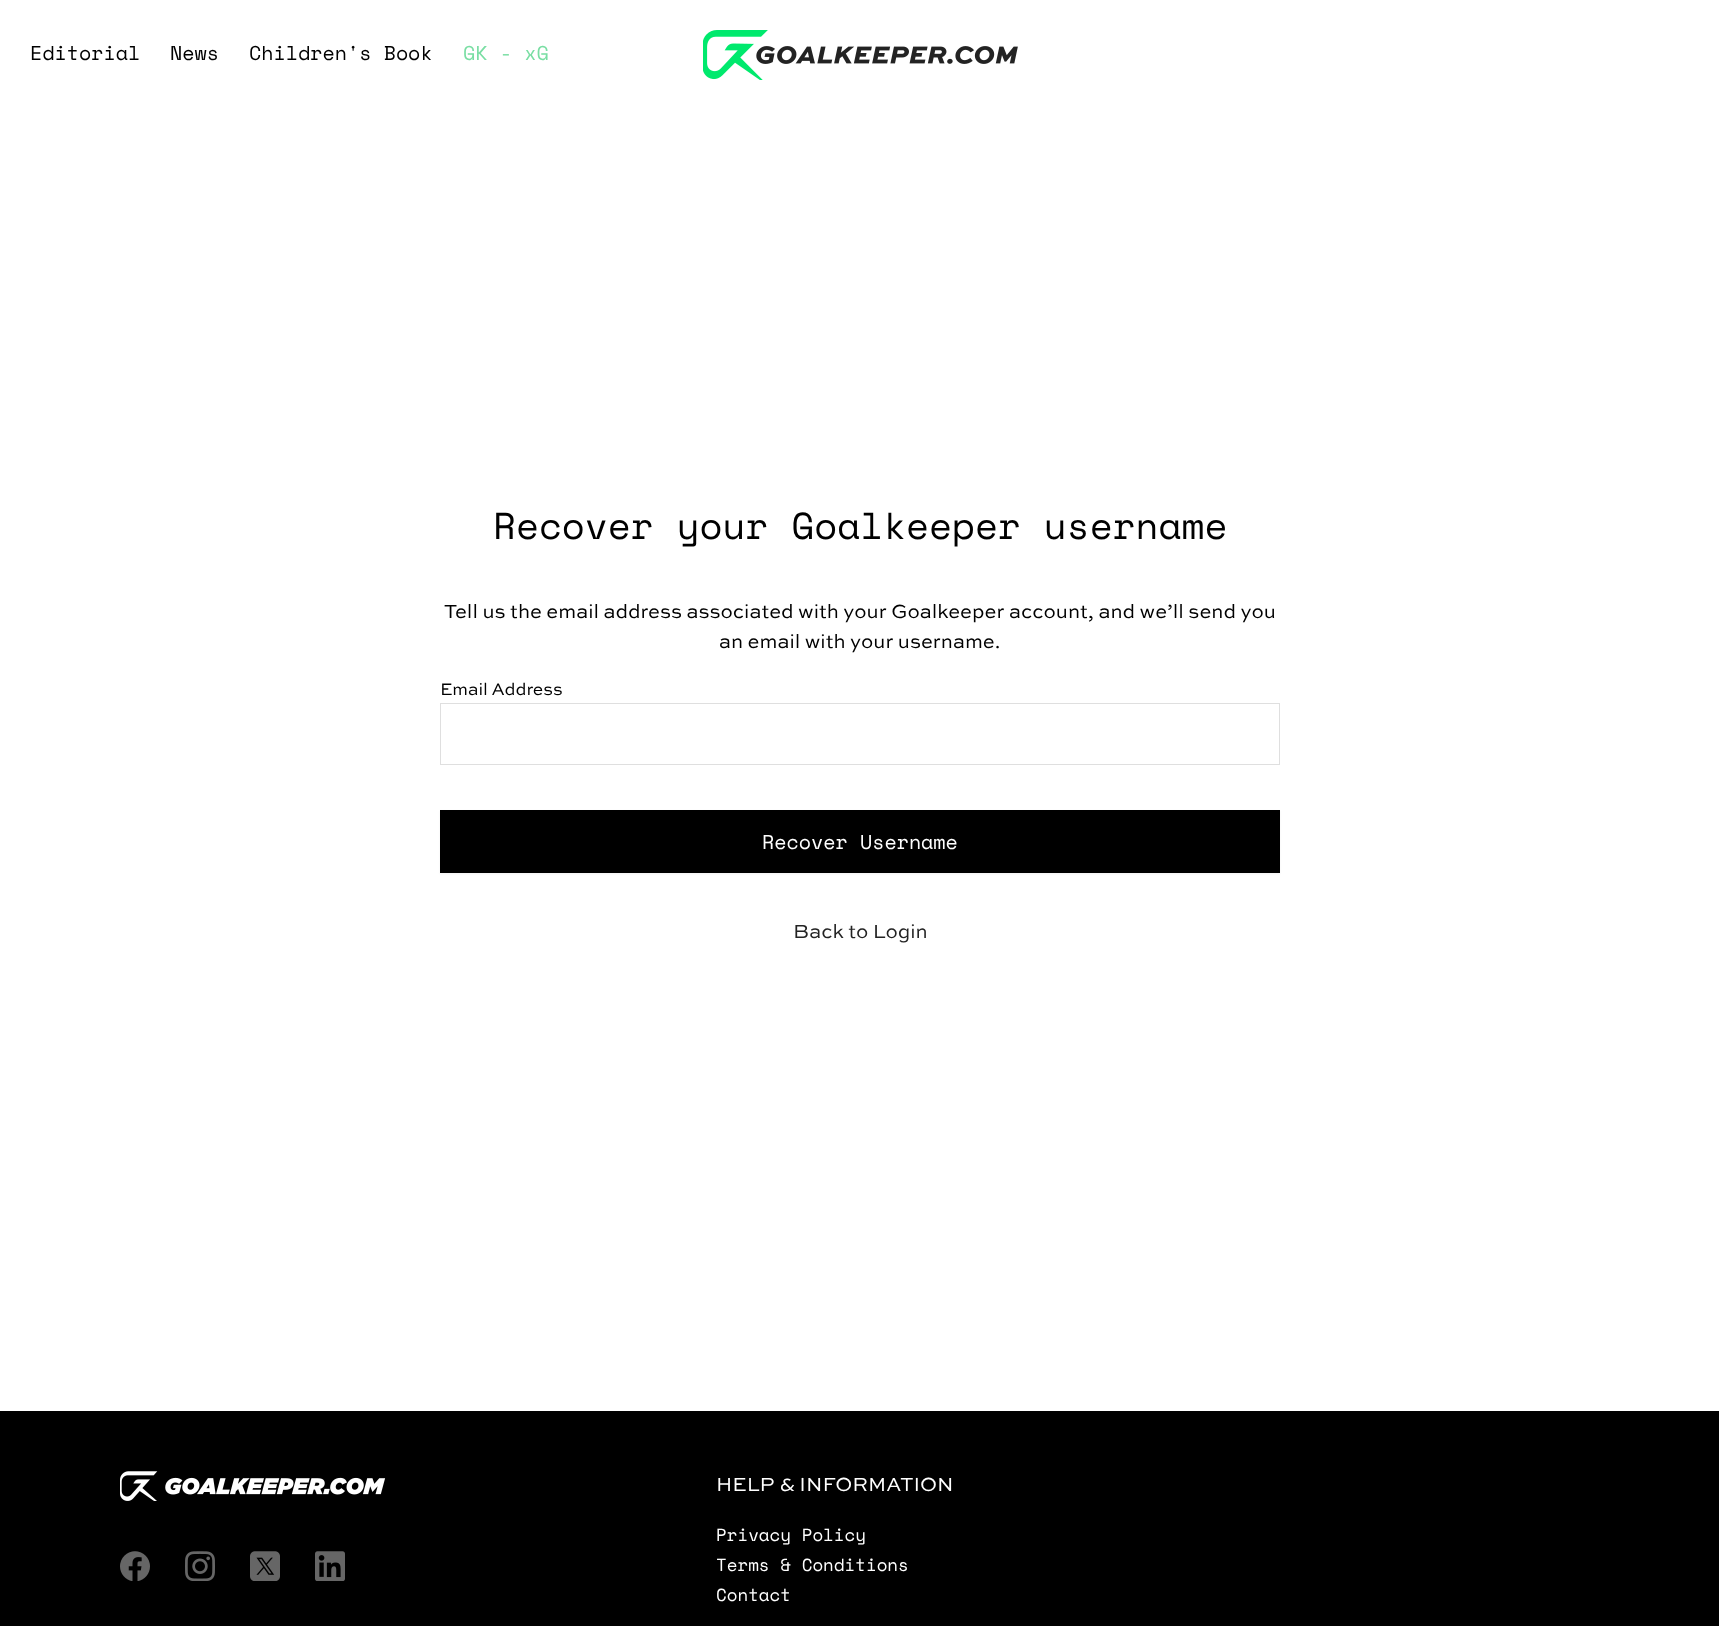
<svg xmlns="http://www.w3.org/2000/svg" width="1719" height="1626">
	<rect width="100%" height="100%" fill="#FFFFFF" />
	<g font-family="Space Mono" font-size="20" fill="#000000">
		<text x="30" y="60">Editorial</text>
		<text x="170" y="60">News</text>
		<text x="249" y="60">Children's Book</text>
	</g>
	<text x="463" y="60" font-family="Space Mono" font-size="20" fill="#79DEA3">GK - xG</text>
	<image x="703" y="30" width="315" height="50" href="assets/img1.png" />
	<text x="493" y="539" font-family="Space Mono" font-size="37.5" fill="#000000">Recover your Goalkeeper username</text>
	<g font-family="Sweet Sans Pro" font-size="20" fill="#000000">
		<text x="444" y="618">Tell us the email address associated with your Goalkeeper account, and we’ll send you</text>
		<text x="719" y="648">an email with your username.</text>
	</g>
	<text x="440" y="695" font-family="Sweet Sans Pro" font-size="17.5" fill="#000000">Email Address</text>
	<rect x="440.5" y="703.5" width="839" height="61" fill="none" stroke="#DFDFDF" />
	<rect x="440" y="811" width="840" height="63" fill="#000000" fill-opacity="0.05" filter="blur(1px)" />
	<rect x="440" y="810" width="840" height="63" fill="#000000" />
	<text x="762" y="849" font-family="Space Mono" font-size="20" fill="#FFFFFF">Recover Username</text>
	<text x="793" y="938" font-family="Sweet Sans Pro" font-size="20" fill="#232323">Back to Login</text>
	<rect x="0" y="1411" width="1719" height="215" fill="#000000" />
	<image x="120" y="1471" width="266" height="30" href="assets/img2.png" />
	<image x="120" y="1551" width="30" height="30" href="assets/img3.png" />
	<image x="185" y="1551" width="30" height="30" href="assets/img4.png" />
	<image x="250" y="1551" width="30" height="30" href="assets/img5.png" />
	<image x="315" y="1551" width="30" height="30" href="assets/img6.png" />
	<text x="716" y="1491" font-family="Sweet Sans Pro" font-size="20" fill="#FFFFFF">HELP &amp; INFORMATION</text>
	<g font-family="Space Mono" font-size="17.5" fill="#FFFFFF">
		<text x="716" y="1541">Privacy Policy</text>
		<text x="716" y="1571">Terms &amp; Conditions</text>
		<text x="716" y="1601">Contact</text>
	</g>
</svg>
